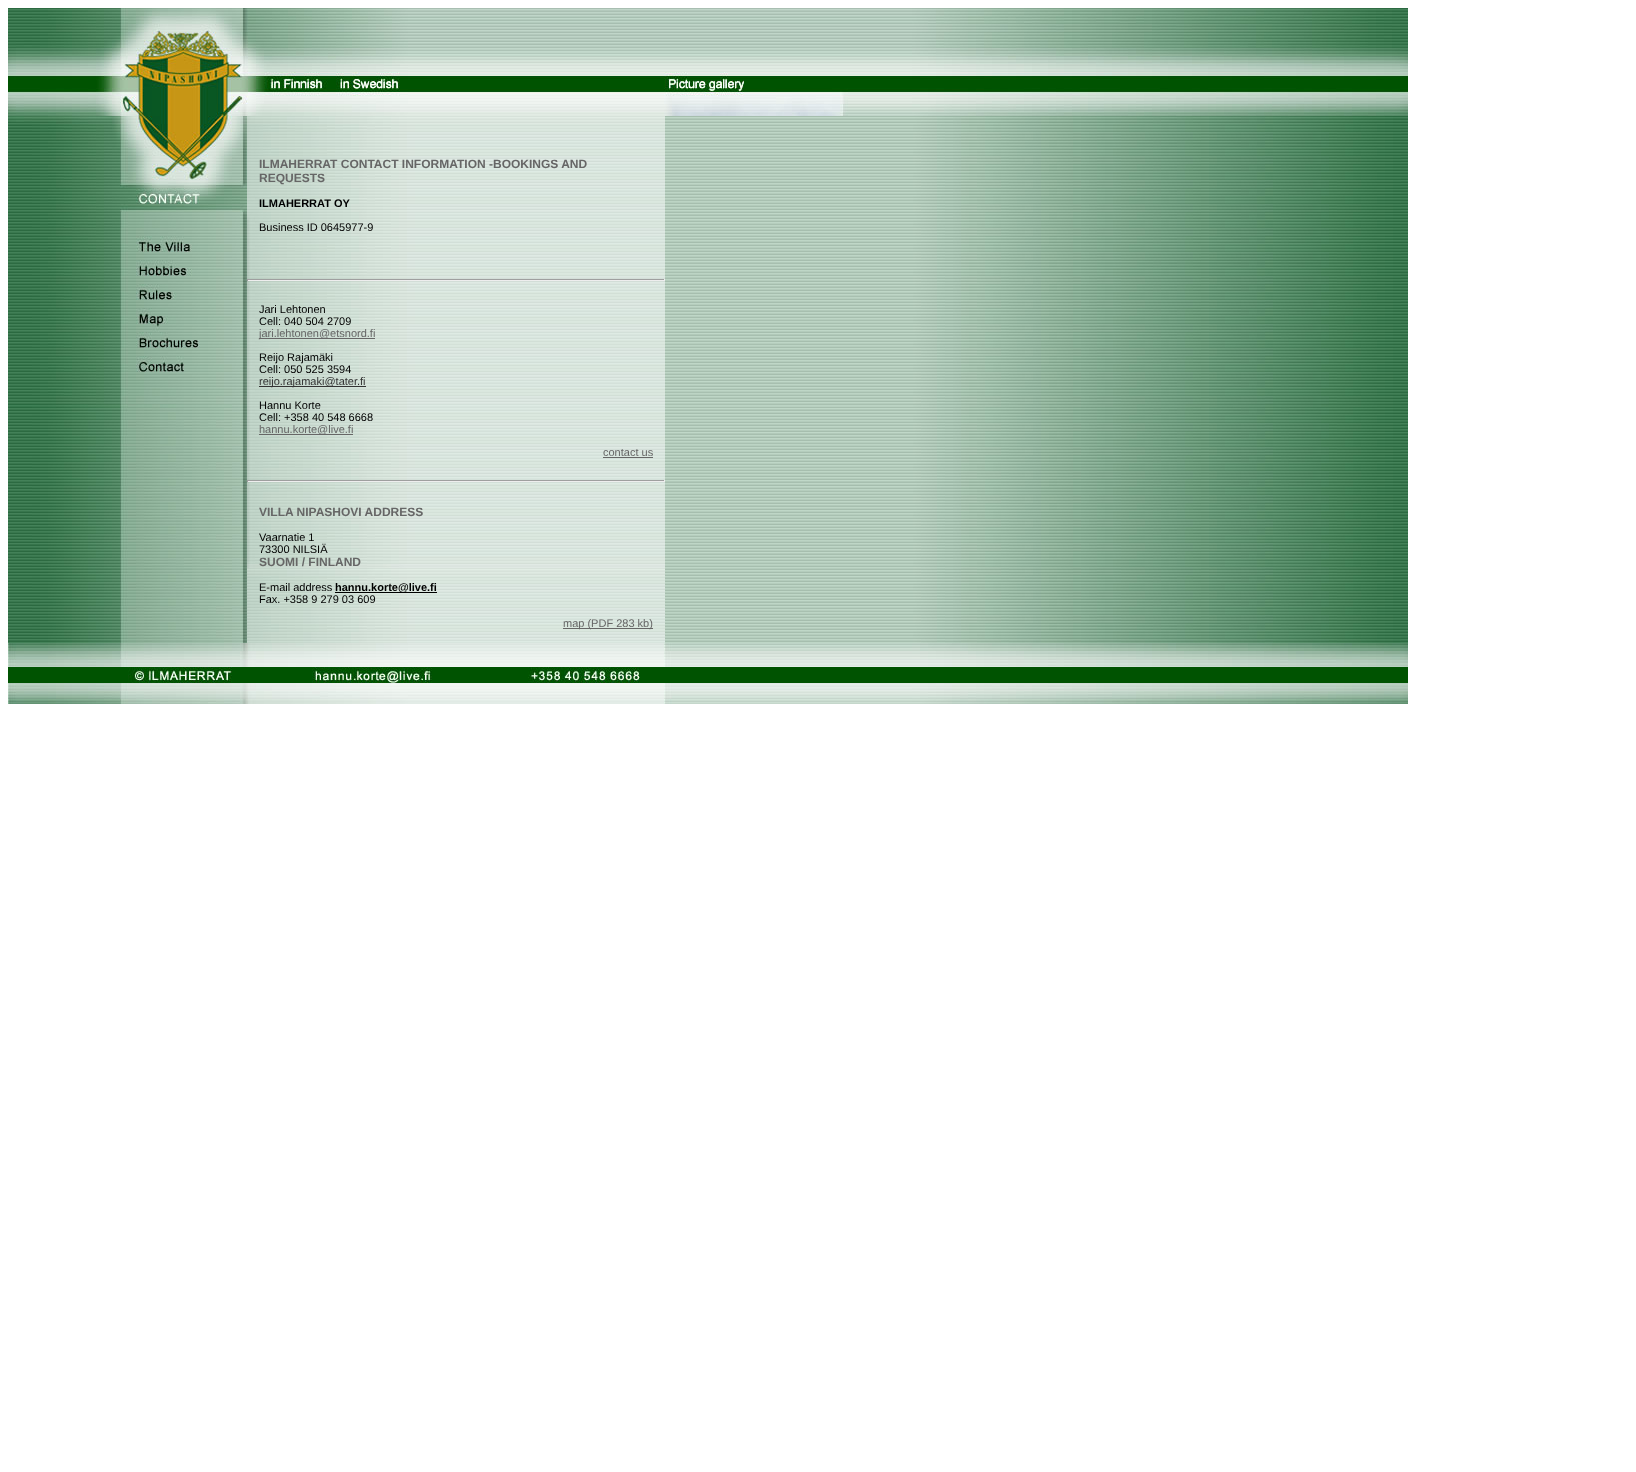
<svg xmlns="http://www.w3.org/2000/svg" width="1636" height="1472">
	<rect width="100%" height="100%" fill="#FFFFFF" />
	<image x="8" y="8" width="1400" height="108" href="assets/img1.png" />
	<image x="8" y="408" width="239" height="235" href="assets/img2.png" />
	<image x="8" y="116" width="239" height="292" href="assets/img3.png" />
	<image x="247" y="116" width="418" height="527" href="assets/img4.png" />
	<g font-family="Liberation Sans" font-size="12" font-weight="700" fill="#666666">
		<text x="259" y="168">ILMAHERRAT CONTACT INFORMATION -BOOKINGS AND</text>
		<text x="259" y="182">REQUESTS</text>
	</g>
	<text x="259" y="207" font-family="Liberation Sans" font-size="11" font-weight="700" fill="#000000">ILMAHERRAT OY</text>
	<text x="259" y="231" font-family="Liberation Sans" font-size="11" fill="#000000">Business ID 0645977-9</text>
	<rect x="247" y="279" width="418" height="1" fill="#9F9F9F" />
	<rect x="664" y="279" width="1" height="2" fill="#EEEEEE" />
	<rect x="247" y="280" width="418" height="1" fill="#EEEEEE" />
	<rect x="247" y="279" width="1" height="2" fill="#9F9F9F" />
	<g font-family="Liberation Sans" font-size="11" fill="#000000">
		<text x="259" y="313">Jari Lehtonen</text>
		<text x="259" y="325">Cell: 040 504 2709</text>
	</g>
	<rect x="259" y="338" width="116" height="1" fill="#666666" />
	<text x="259" y="337" font-family="Liberation Sans" font-size="11" fill="#666666">jari.lehtonen@etsnord.fi</text>
	<g font-family="Liberation Sans" font-size="11" fill="#000000">
		<text x="259" y="361">Reijo Rajamäki</text>
		<text x="259" y="373">Cell: 050 525 3594</text>
	</g>
	<rect x="259" y="386" width="107" height="1" fill="#333333" />
	<text x="259" y="385" font-family="Liberation Sans" font-size="11" fill="#333333">reijo.rajamaki@tater.fi</text>
	<g font-family="Liberation Sans" font-size="11" fill="#000000">
		<text x="259" y="409">Hannu Korte</text>
		<text x="259" y="421">Cell: +358 40 548 6668</text>
	</g>
	<rect x="259" y="434" width="94" height="1" fill="#666666" />
	<g font-family="Liberation Sans" font-size="11" fill="#666666">
		<text x="259" y="433">hannu.korte@live.fi</text>
		<text x="603" y="456">contact us</text>
	</g>
	<rect x="603" y="457" width="50" height="1" fill="#666666" />
	<rect x="247" y="480" width="418" height="1" fill="#9F9F9F" />
	<rect x="664" y="480" width="1" height="2" fill="#EEEEEE" />
	<rect x="247" y="481" width="418" height="1" fill="#EEEEEE" />
	<rect x="247" y="480" width="1" height="2" fill="#9F9F9F" />
	<text x="259" y="516" font-family="Liberation Sans" font-size="12" font-weight="700" fill="#666666">VILLA NIPASHOVI ADDRESS</text>
	<g font-family="Liberation Sans" font-size="11" fill="#000000">
		<text x="259" y="541">Vaarnatie 1</text>
		<text x="259" y="553">73300 NILSIÄ</text>
	</g>
	<text x="259" y="566" font-family="Liberation Sans" font-size="12" font-weight="700" fill="#666666">SUOMI / FINLAND</text>
	<text x="259" y="591" font-family="Liberation Sans" font-size="11" fill="#000000">E-mail address</text>
	<rect x="335" y="592" width="102" height="1" fill="#000000" />
	<text x="335" y="591" font-family="Liberation Sans" font-size="11" font-weight="700" fill="#000000">hannu.korte@live.fi</text>
	<text x="259" y="603" font-family="Liberation Sans" font-size="11" fill="#000000">Fax. +358 9 279 03 609</text>
	<rect x="563" y="628" width="90" height="1" fill="#666666" />
	<text x="563" y="627" font-family="Liberation Sans" font-size="11" fill="#666666">map (PDF 283 kb)</text>
	<image x="665" y="116" width="743" height="527" href="assets/img5.png" />
	<image x="8" y="643" width="1400" height="61" href="assets/img6.png" />
</svg>
